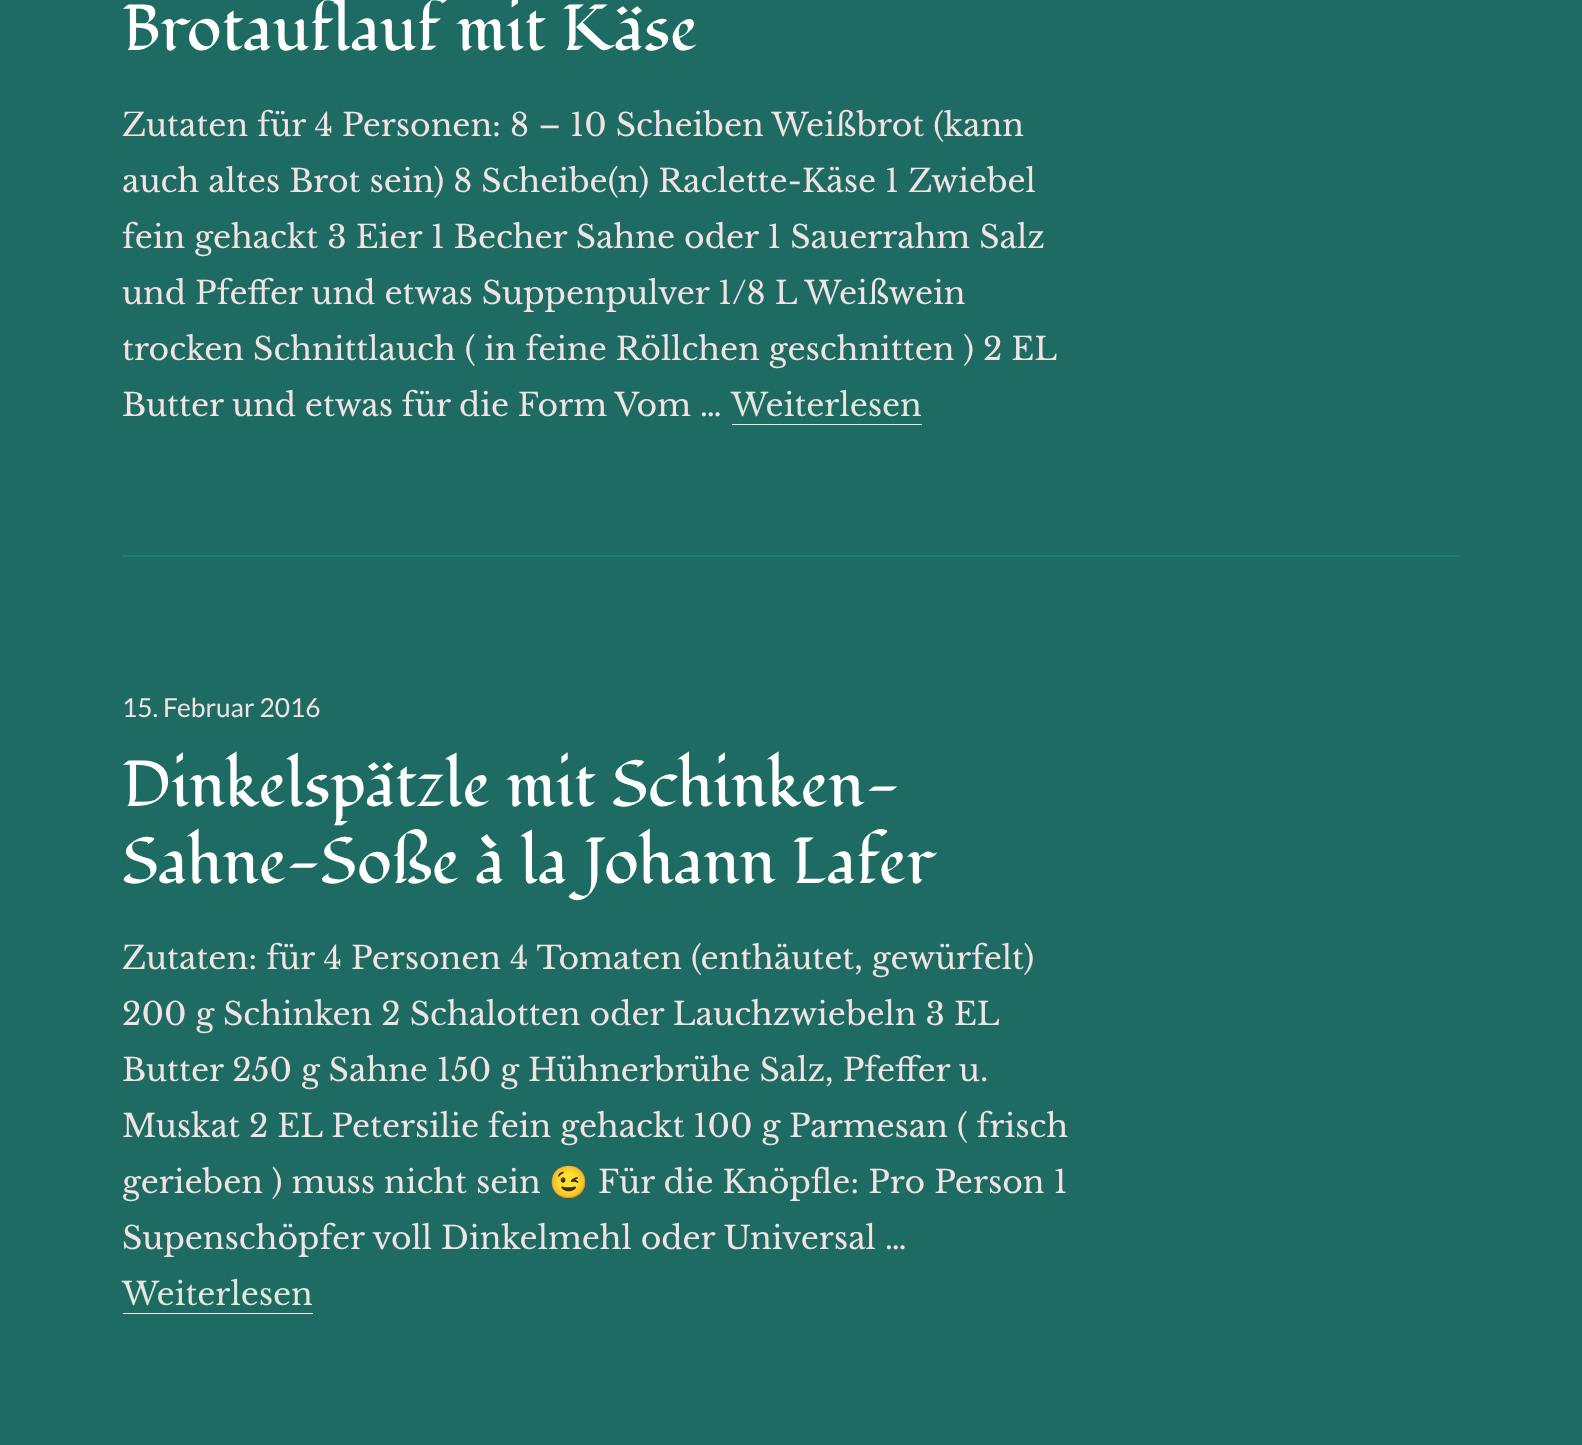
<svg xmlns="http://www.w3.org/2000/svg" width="1582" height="1445">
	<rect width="100%" height="100%" fill="#1E6B63" />
	<text x="122" y="50" font-family="Fondamento" font-size="64.75" fill="#FFFFFF">Brotauflauf mit Käse</text>
	<g font-family="Libre Baskerville" font-size="31.5" fill="#F1E3E3">
		<text x="122" y="136">Zutaten für 4 Personen: 8 – 10 Scheiben Weißbrot (kann</text>
		<text x="122" y="192">auch altes Brot sein) 8 Scheibe(n) Raclette-Käse 1 Zwiebel</text>
		<text x="122" y="248">fein gehackt 3 Eier 1 Becher Sahne oder 1 Sauerrahm Salz</text>
		<text x="122" y="304">und Pfeffer und etwas Suppenpulver 1/8 L Weißwein</text>
		<text x="122" y="360">trocken Schnittlauch ( in feine Röllchen geschnitten ) 2 EL</text>
		<text x="122" y="416" word-spacing="-0.25">Butter und etwas für die Form Vom …</text>
	</g>
	<text x="731" y="416" font-family="Libre Baskerville" font-size="31.5" fill="#E2E8DD">Weiterlesen</text>
	<rect x="732" y="424" width="190" height="1" fill="#E2E8DD" />
	<rect x="123" y="555" width="1337" height="2" fill="#217C73" />
	<text x="122" y="717" font-family="Lato" font-size="26.25" fill="#F1E3E3">15. Februar 2016</text>
	<g font-family="Fondamento" font-size="64.75" fill="#FFFFFF">
		<text x="122" y="806">Dinkelspätzle mit Schinken-</text>
		<text x="122" y="883">Sahne-Soße à la Johann Lafer</text>
	</g>
	<g font-family="Libre Baskerville" font-size="31.5" fill="#F1E3E3">
		<text x="122" y="969">Zutaten: für 4 Personen 4 Tomaten (enthäutet, gewürfelt)</text>
		<text x="122" y="1025">200 g Schinken 2 Schalotten oder Lauchzwiebeln 3 EL</text>
		<text x="122" y="1081">Butter 250 g Sahne 150 g Hühnerbrühe Salz, Pfeffer u.</text>
		<text x="122" y="1137">Muskat 2 EL Petersilie fein gehackt 100 g Parmesan ( frisch</text>
		<text x="122" y="1193">gerieben ) muss nicht sein</text>
	</g>
	<text x="549" y="1193" font-family="Noto Color Emoji" font-size="31.5" fill="#F1E3E3">😉</text>
	<g font-family="Libre Baskerville" font-size="31.5" fill="#F1E3E3">
		<text x="598" y="1193">Für die Knöpfle: Pro Person 1</text>
		<text x="122" y="1249">Supenschöpfer voll Dinkelmehl oder Universal …</text>
	</g>
	<text x="122" y="1305" font-family="Libre Baskerville" font-size="31.5" fill="#E2E8DD">Weiterlesen</text>
	<rect x="123" y="1313" width="190" height="1" fill="#E2E8DD" />
</svg>
